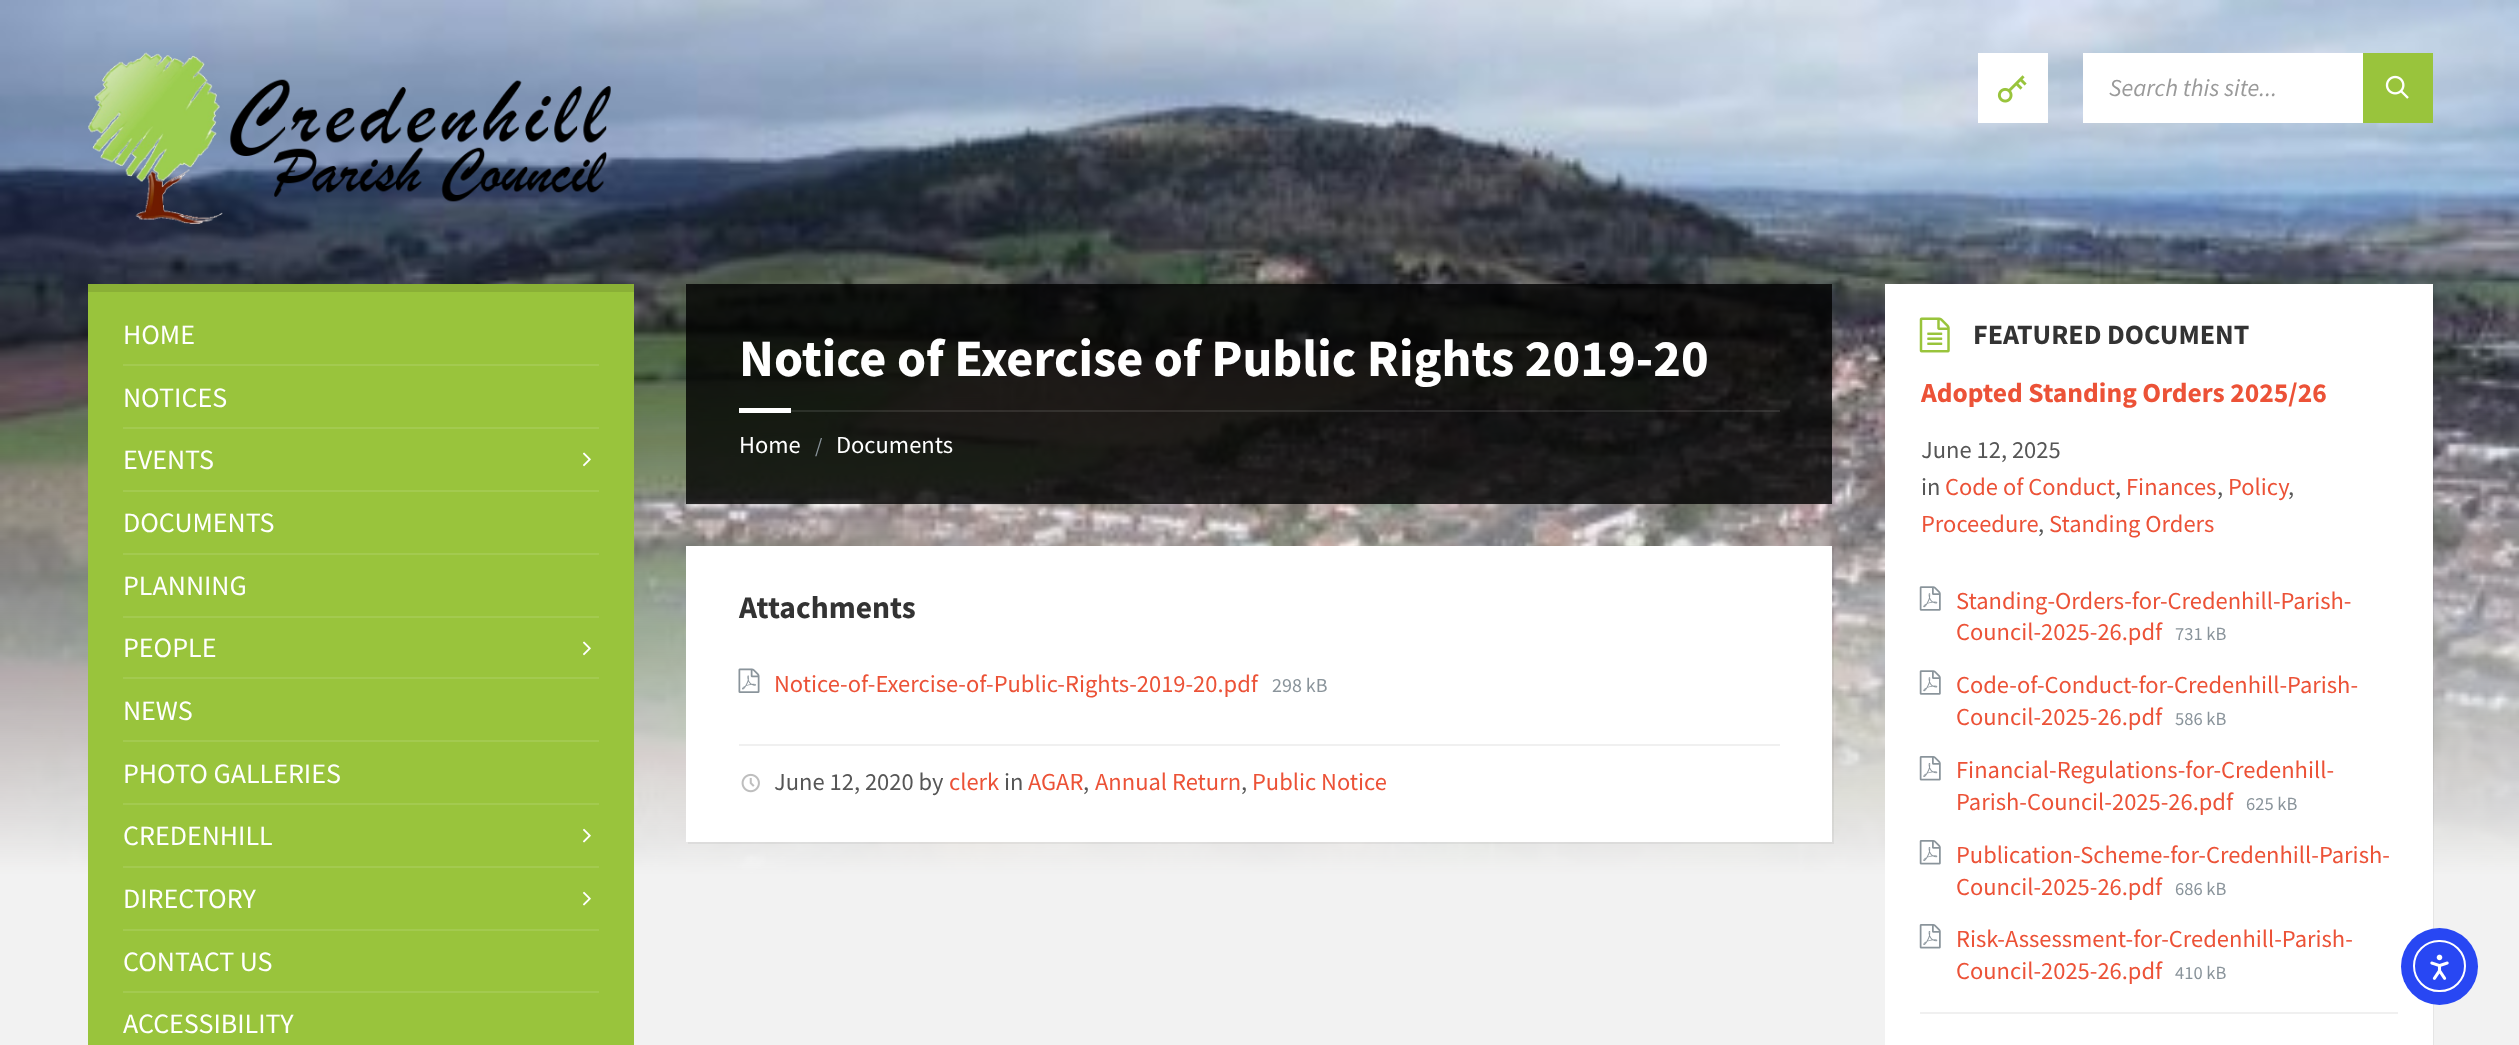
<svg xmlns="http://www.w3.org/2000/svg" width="2519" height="1045">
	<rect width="100%" height="100%" fill="#F2F2F2" />
	<image x="0" y="0" width="2519" height="875" href="assets/img1.png" />
	<image x="88" y="52" width="523" height="172" href="assets/img2.png" />
	<rect x="1978" y="53" width="70" height="70" fill="#FFFFFF" />
	<image x="1997" y="75" width="30" height="28" href="assets/img3.png" />
	<rect x="2083" y="53" width="280" height="70" fill="#FFFFFF" />
	<text x="2109" y="96" font-family="Source Sans Pro" font-size="24.5" font-style="italic" fill="#9A9A9A">Search this site...</text>
	<rect x="2363" y="53" width="70" height="70" fill="#99C43C" />
	<image x="2385" y="75" width="24" height="24" href="assets/img4.png" />
	<rect x="88" y="292" width="546" height="753" fill="#99C43C" />
	<rect x="88" y="284" width="546" height="8" fill="#8AB036" />
	<text x="123" y="344" font-family="Source Sans Pro" font-size="28" fill="#FFFFFF">HOME</text>
	<rect x="123" y="364" width="476" height="2" fill="#A3CA50" />
	<text x="123" y="407" font-family="Source Sans Pro" font-size="28" fill="#FFFFFF">NOTICES</text>
	<rect x="123" y="427" width="476" height="2" fill="#A3CA50" />
	<text x="123" y="469" font-family="Source Sans Pro" font-size="28" fill="#FFFFFF">EVENTS</text>
	<image x="583" y="452" width="8" height="15" href="assets/img5.png" />
	<rect x="123" y="490" width="476" height="2" fill="#A3CA50" />
	<text x="123" y="532" font-family="Source Sans Pro" font-size="28" fill="#FFFFFF">DOCUMENTS</text>
	<rect x="123" y="553" width="476" height="2" fill="#A3CA50" />
	<text x="123" y="595" font-family="Source Sans Pro" font-size="28" fill="#FFFFFF">PLANNING</text>
	<rect x="123" y="616" width="476" height="2" fill="#A3CA50" />
	<text x="123" y="657" font-family="Source Sans Pro" font-size="28" fill="#FFFFFF">PEOPLE</text>
	<image x="583" y="641" width="8" height="15" href="assets/img5.png" />
	<rect x="123" y="677" width="476" height="2" fill="#A3CA50" />
	<text x="123" y="720" font-family="Source Sans Pro" font-size="28" fill="#FFFFFF">NEWS</text>
	<rect x="123" y="740" width="476" height="2" fill="#A3CA50" />
	<text x="123" y="783" font-family="Source Sans Pro" font-size="28" fill="#FFFFFF">PHOTO GALLERIES</text>
	<rect x="123" y="803" width="476" height="2" fill="#A3CA50" />
	<text x="123" y="845" font-family="Source Sans Pro" font-size="28" fill="#FFFFFF">CREDENHILL</text>
	<image x="582" y="828" width="9" height="15" href="assets/img6.png" />
	<rect x="123" y="866" width="476" height="2" fill="#A3CA50" />
	<text x="123" y="908" font-family="Source Sans Pro" font-size="28" fill="#FFFFFF">DIRECTORY</text>
	<image x="582" y="891" width="9" height="15" href="assets/img6.png" />
	<rect x="123" y="929" width="476" height="2" fill="#A3CA50" />
	<text x="123" y="971" font-family="Source Sans Pro" font-size="28" fill="#FFFFFF">CONTACT US</text>
	<rect x="123" y="991" width="476" height="2" fill="#A3CA50" />
	<text x="123" y="1033" font-family="Source Sans Pro" font-size="28" fill="#FFFFFF">ACCESSIBILITY</text>
	<rect x="686" y="284" width="1146" height="220" fill="#000000" fill-opacity="0.8" />
	<text x="739" y="376" font-family="Source Sans Pro" font-size="52.5" font-weight="700" fill="#FFFFFF">Notice of Exercise of Public Rights 2019-20</text>
	<rect x="791" y="410" width="989" height="2" fill="#FFFFFF" fill-opacity="0.1" />
	<rect x="739" y="408" width="52" height="5" fill="#FFFFFF" />
	<text x="739" y="453" font-family="Source Sans Pro" font-size="24.5" fill="#FFFFFF">Home</text>
	<text x="815" y="453" font-family="Source Sans Pro" font-size="21" fill="#8A949B">/</text>
	<text x="836" y="453" font-family="Source Sans Pro" font-size="24.5" fill="#FFFFFF">Documents</text>
	<path d="M688 842V844H1834V548H1832V842Z" fill="#000000" fill-opacity="0.05" />
	<rect x="686" y="546" width="1146" height="296" fill="#FFFFFF" />
	<text x="739" y="618" font-family="Source Sans Pro" font-size="31.5" font-weight="700" fill="#333333">Attachments</text>
	<image x="738" y="668" width="22" height="25" href="assets/img7.png" />
	<text x="774" y="692" font-family="Source Sans Pro" font-size="24.5" fill="#EC5237">Notice-of-Exercise-of-Public-Rights-2019-20.pdf</text>
	<text x="1272" y="692" font-family="Source Sans Pro" font-size="20" fill="#8A949B">298 kB</text>
	<rect x="739" y="744" width="1041" height="2" fill="#F0F0F0" />
	<image x="741" y="773" width="19" height="20" href="assets/img8.png" />
	<text x="774" y="790" font-family="Source Sans Pro" font-size="24.5" fill="#565656">June 12, 2020 by</text>
	<text x="949" y="790" font-family="Source Sans Pro" font-size="24.5" fill="#EC5237">clerk</text>
	<text x="1004" y="790" font-family="Source Sans Pro" font-size="24.5" fill="#565656">in</text>
	<text x="1028" y="790" font-family="Source Sans Pro" font-size="24.5" fill="#EC5237">AGAR</text>
	<text x="1083" y="790" font-family="Source Sans Pro" font-size="24.5" fill="#565656">,</text>
	<text x="1095" y="790" font-family="Source Sans Pro" font-size="24.5" fill="#EC5237">Annual Return</text>
	<text x="1241" y="790" font-family="Source Sans Pro" font-size="24.5" fill="#565656">,</text>
	<text x="1252" y="790" font-family="Source Sans Pro" font-size="24.5" fill="#EC5237">Public Notice</text>
	<path d="M1887 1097V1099H2434V285H2432V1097Z" fill="#000000" fill-opacity="0.05" />
	<rect x="1885" y="284" width="548" height="761" fill="#FFFFFF" />
	<image x="1919" y="317" width="31" height="36" href="assets/img9.png" />
	<text x="1973" y="344" font-family="Source Sans Pro" font-size="28" font-weight="700" fill="#333333">FEATURED DOCUMENT</text>
	<text x="1921" y="402" font-family="Source Sans Pro" font-size="27.5" font-weight="700" fill="#EC5237">Adopted Standing Orders 2025/26</text>
	<g font-family="Source Sans Pro" font-size="24.5" fill="#565656">
		<text x="1921" y="458">June 12, 2025</text>
		<text x="1921" y="495">in</text>
	</g>
	<text x="1945" y="495" font-family="Source Sans Pro" font-size="24.5" fill="#EC5237">Code of Conduct</text>
	<text x="2115" y="495" font-family="Source Sans Pro" font-size="24.5" fill="#565656">,</text>
	<text x="2126" y="495" font-family="Source Sans Pro" font-size="24.5" fill="#EC5237">Finances</text>
	<text x="2217" y="495" font-family="Source Sans Pro" font-size="24.5" fill="#565656">,</text>
	<text x="2228" y="495" font-family="Source Sans Pro" font-size="24.5" fill="#EC5237">Policy</text>
	<text x="2288" y="495" font-family="Source Sans Pro" font-size="24.5" fill="#565656">,</text>
	<text x="1921" y="532" font-family="Source Sans Pro" font-size="24.5" fill="#EC5237">Proceedure</text>
	<text x="2038" y="532" font-family="Source Sans Pro" font-size="24.5" fill="#565656">,</text>
	<text x="2049" y="532" font-family="Source Sans Pro" font-size="24.5" fill="#EC5237">Standing Orders</text>
	<image x="1919" y="586" width="22" height="25" href="assets/img10.png" />
	<g font-family="Source Sans Pro" font-size="24.5" fill="#EC5237">
		<text x="1956" y="609">Standing-Orders-for-Credenhill-Parish-</text>
		<text x="1956" y="640">Council-2025-26.pdf</text>
	</g>
	<text x="2175" y="640" font-family="Source Sans Pro" font-size="18.5" fill="#8A949B">731 kB</text>
	<image x="1919" y="670" width="22" height="25" href="assets/img10.png" />
	<g font-family="Source Sans Pro" font-size="24.5" fill="#EC5237">
		<text x="1956" y="693">Code-of-Conduct-for-Credenhill-Parish-</text>
		<text x="1956" y="725">Council-2025-26.pdf</text>
	</g>
	<text x="2175" y="725" font-family="Source Sans Pro" font-size="18.5" fill="#8A949B">586 kB</text>
	<image x="1919" y="756" width="22" height="25" href="assets/img11.png" />
	<g font-family="Source Sans Pro" font-size="24.5" fill="#EC5237">
		<text x="1956" y="778">Financial-Regulations-for-Credenhill-</text>
		<text x="1956" y="810">Parish-Council-2025-26.pdf</text>
	</g>
	<text x="2246" y="810" font-family="Source Sans Pro" font-size="18.5" fill="#8A949B">625 kB</text>
	<image x="1919" y="840" width="22" height="25" href="assets/img11.png" />
	<g font-family="Source Sans Pro" font-size="24.5" fill="#EC5237">
		<text x="1956" y="863">Publication-Scheme-for-Credenhill-Parish-</text>
		<text x="1956" y="895">Council-2025-26.pdf</text>
	</g>
	<text x="2175" y="895" font-family="Source Sans Pro" font-size="18.5" fill="#8A949B">686 kB</text>
	<image x="1919" y="924" width="22" height="25" href="assets/img11.png" />
	<g font-family="Source Sans Pro" font-size="24.5" fill="#EC5237">
		<text x="1956" y="947">Risk-Assessment-for-Credenhill-Parish-</text>
		<text x="1956" y="979">Council-2025-26.pdf</text>
	</g>
	<text x="2175" y="979" font-family="Source Sans Pro" font-size="18.5" fill="#8A949B">410 kB</text>
	<rect x="1920" y="1012" width="478" height="2" fill="#F0F0F0" />
	<circle cx="2439.5" cy="966.5" r="38.5" fill="#2847F3" />
	<rect x="2414" y="941" width="51" height="50" rx="25" fill="none" stroke="#FFFFFF" stroke-width="2" />
	<image x="2430" y="954" width="19" height="26" href="assets/img12.png" />
</svg>
